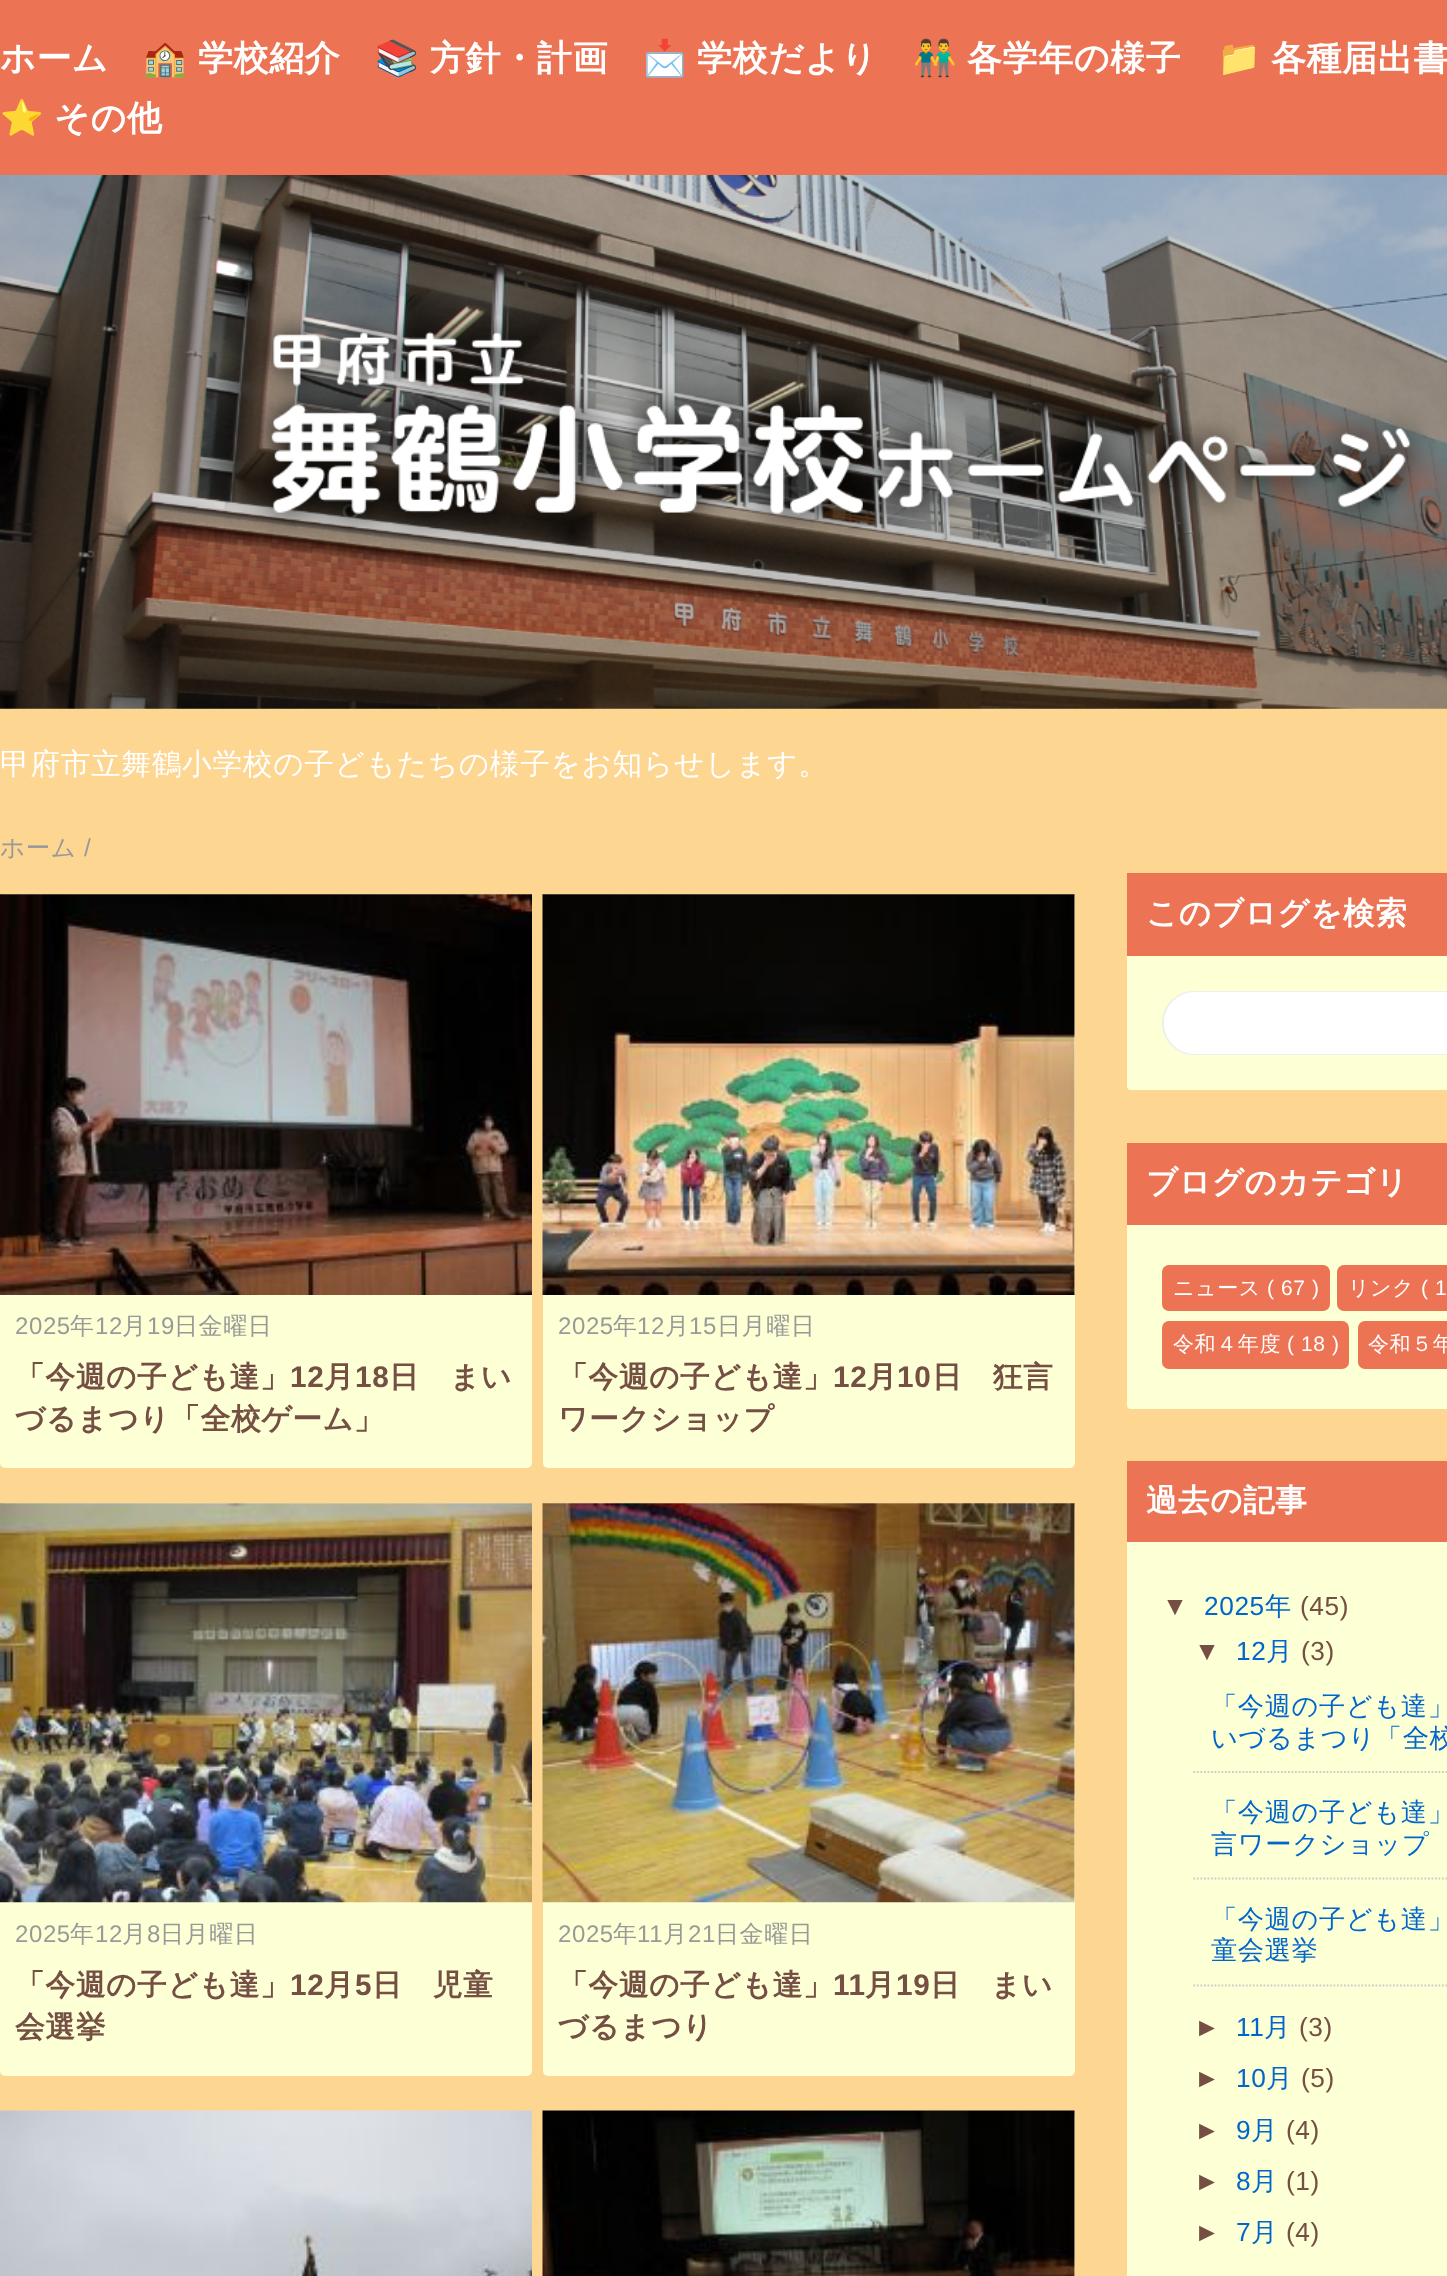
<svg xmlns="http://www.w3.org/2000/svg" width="1447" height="2276">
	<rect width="100%" height="100%" fill="#FDD692" />
	<rect x="0" y="0" width="1447" height="175" fill="#EC7353" />
	<text x="0" y="70" font-family="WenQuanYi Zen Hei" font-size="35" font-weight="700" letter-spacing="0.6" fill="#FFFFFF">ホーム</text>
	<text x="143" y="70" font-family="Noto Color Emoji" font-size="35" font-weight="700" letter-spacing="0.6" fill="#FFFFFF">🏫</text>
	<text x="198" y="70" font-family="WenQuanYi Zen Hei" font-size="35" font-weight="700" letter-spacing="0.6" fill="#FFFFFF">学校紹介</text>
	<text x="375" y="70" font-family="Noto Color Emoji" font-size="35" font-weight="700" letter-spacing="0.6" fill="#FFFFFF">📚</text>
	<text x="430" y="70" font-family="WenQuanYi Zen Hei" font-size="35" font-weight="700" letter-spacing="0.6" fill="#FFFFFF">方針・計画</text>
	<text x="643" y="70" font-family="Noto Color Emoji" font-size="35" font-weight="700" letter-spacing="0.6" fill="#FFFFFF">📩</text>
	<text x="697" y="70" font-family="WenQuanYi Zen Hei" font-size="35" font-weight="700" letter-spacing="0.6" fill="#FFFFFF">学校だより</text>
	<text x="913" y="70" font-family="Noto Color Emoji" font-size="35" font-weight="700" letter-spacing="0.6" fill="#FFFFFF">👬</text>
	<text x="967" y="70" font-family="WenQuanYi Zen Hei" font-size="35" font-weight="700" letter-spacing="0.6" fill="#FFFFFF">各学年の様子</text>
	<text x="1217" y="70" font-family="Noto Color Emoji" font-size="35" font-weight="700" letter-spacing="0.6" fill="#FFFFFF">📁</text>
	<text x="1271" y="70" font-family="WenQuanYi Zen Hei" font-size="35" font-weight="700" letter-spacing="0.6" fill="#FFFFFF">各種届出書</text>
	<text x="0" y="130" font-family="Noto Color Emoji" font-size="35" font-weight="700" letter-spacing="0.6" fill="#FFFFFF">⭐</text>
	<text x="54" y="130" font-family="WenQuanYi Zen Hei" font-size="35" font-weight="700" letter-spacing="0.6" fill="#FFFFFF">その他</text>
	<image x="0" y="175" width="1447" height="534" href="assets/img1.png" />
	<text x="0" y="774" font-family="WenQuanYi Zen Hei" font-size="29.75" font-weight="500" letter-spacing="0.6" fill="#FFFFFF">甲府市立舞鶴小学校の子どもたちの様子をお知らせします。</text>
	<text x="0" y="856" font-family="WenQuanYi Zen Hei" font-size="24.5" font-weight="500" letter-spacing="0.6" fill="#999999">ホーム</text>
	<text x="84" y="856" font-family="Liberation Sans" font-size="24.5" letter-spacing="0.6" fill="#999999">/</text>
	<rect x="0" y="894" width="532" height="574" rx="5" fill="#FDFFD4" />
	<image x="0" y="894" width="532" height="401" href="assets/img2.png" />
	<text x="15" y="1334" font-family="Liberation Sans" font-size="24" letter-spacing="0.6" fill="#999999">2025</text>
	<text x="70" y="1334" font-family="WenQuanYi Zen Hei" font-size="24" font-weight="500" letter-spacing="0.6" fill="#999999">年</text>
	<text x="95" y="1334" font-family="Liberation Sans" font-size="24" letter-spacing="0.6" fill="#999999">12</text>
	<text x="122" y="1334" font-family="WenQuanYi Zen Hei" font-size="24" font-weight="500" letter-spacing="0.6" fill="#999999">月</text>
	<text x="147" y="1334" font-family="Liberation Sans" font-size="24" letter-spacing="0.6" fill="#999999">19</text>
	<text x="174" y="1334" font-family="WenQuanYi Zen Hei" font-size="24" font-weight="500" letter-spacing="0.6" fill="#999999">日金曜日</text>
	<text x="15" y="1387" font-family="WenQuanYi Zen Hei" font-size="29.75" font-weight="700" letter-spacing="0.6" fill="#754F44">「今週の子ども達」</text>
	<text x="290" y="1387" font-family="Liberation Sans" font-size="29.75" font-weight="700" letter-spacing="0.6" fill="#754F44">12</text>
	<text x="324" y="1387" font-family="WenQuanYi Zen Hei" font-size="29.75" font-weight="700" letter-spacing="0.6" fill="#754F44">月</text>
	<text x="355" y="1387" font-family="Liberation Sans" font-size="29.75" font-weight="700" letter-spacing="0.6" fill="#754F44">18</text>
	<g font-family="WenQuanYi Zen Hei" font-size="29.75" font-weight="700" letter-spacing="0.6" fill="#754F44">
		<text x="389" y="1387">日　まい</text>
		<text x="15" y="1429">づるまつり「全校ゲーム」</text>
	</g>
	<rect x="543" y="894" width="532" height="574" rx="5" fill="#FDFFD4" />
	<image x="542" y="894" width="533" height="401" href="assets/img3.png" />
	<text x="558" y="1334" font-family="Liberation Sans" font-size="24" letter-spacing="0.6" fill="#999999">2025</text>
	<text x="613" y="1334" font-family="WenQuanYi Zen Hei" font-size="24" font-weight="500" letter-spacing="0.6" fill="#999999">年</text>
	<text x="637" y="1334" font-family="Liberation Sans" font-size="24" letter-spacing="0.6" fill="#999999">12</text>
	<text x="665" y="1334" font-family="WenQuanYi Zen Hei" font-size="24" font-weight="500" letter-spacing="0.6" fill="#999999">月</text>
	<text x="689" y="1334" font-family="Liberation Sans" font-size="24" letter-spacing="0.6" fill="#999999">15</text>
	<text x="717" y="1334" font-family="WenQuanYi Zen Hei" font-size="24" font-weight="500" letter-spacing="0.6" fill="#999999">日月曜日</text>
	<text x="558" y="1387" font-family="WenQuanYi Zen Hei" font-size="29.75" font-weight="700" letter-spacing="0.6" fill="#754F44">「今週の子ども達」</text>
	<text x="833" y="1387" font-family="Liberation Sans" font-size="29.75" font-weight="700" letter-spacing="0.6" fill="#754F44">12</text>
	<text x="867" y="1387" font-family="WenQuanYi Zen Hei" font-size="29.75" font-weight="700" letter-spacing="0.6" fill="#754F44">月</text>
	<text x="897" y="1387" font-family="Liberation Sans" font-size="29.75" font-weight="700" letter-spacing="0.6" fill="#754F44">10</text>
	<g font-family="WenQuanYi Zen Hei" font-size="29.75" font-weight="700" letter-spacing="0.6" fill="#754F44">
		<text x="932" y="1387">日　狂言</text>
		<text x="558" y="1429">ワークショップ</text>
	</g>
	<rect x="0" y="1503" width="532" height="573" rx="5" fill="#FDFFD4" />
	<image x="0" y="1503" width="532" height="400" href="assets/img4.png" />
	<text x="15" y="1942" font-family="Liberation Sans" font-size="24" letter-spacing="0.6" fill="#999999">2025</text>
	<text x="70" y="1942" font-family="WenQuanYi Zen Hei" font-size="24" font-weight="500" letter-spacing="0.6" fill="#999999">年</text>
	<text x="95" y="1942" font-family="Liberation Sans" font-size="24" letter-spacing="0.6" fill="#999999">12</text>
	<text x="122" y="1942" font-family="WenQuanYi Zen Hei" font-size="24" font-weight="500" letter-spacing="0.6" fill="#999999">月</text>
	<text x="147" y="1942" font-family="Liberation Sans" font-size="24" letter-spacing="0.6" fill="#999999">8</text>
	<text x="160" y="1942" font-family="WenQuanYi Zen Hei" font-size="24" font-weight="500" letter-spacing="0.6" fill="#999999">日月曜日</text>
	<text x="15" y="1995" font-family="WenQuanYi Zen Hei" font-size="29.75" font-weight="700" letter-spacing="0.6" fill="#754F44">「今週の子ども達」</text>
	<text x="290" y="1995" font-family="Liberation Sans" font-size="29.75" font-weight="700" letter-spacing="0.6" fill="#754F44">12</text>
	<text x="324" y="1995" font-family="WenQuanYi Zen Hei" font-size="29.75" font-weight="700" letter-spacing="0.6" fill="#754F44">月</text>
	<text x="355" y="1995" font-family="Liberation Sans" font-size="29.75" font-weight="700" letter-spacing="0.6" fill="#754F44">5</text>
	<g font-family="WenQuanYi Zen Hei" font-size="29.75" font-weight="700" letter-spacing="0.6" fill="#754F44">
		<text x="372" y="1995">日　児童</text>
		<text x="15" y="2037">会選挙</text>
	</g>
	<rect x="543" y="1503" width="532" height="573" rx="5" fill="#FDFFD4" />
	<image x="542" y="1503" width="533" height="400" href="assets/img5.png" />
	<text x="558" y="1942" font-family="Liberation Sans" font-size="24" letter-spacing="0.6" fill="#999999">2025</text>
	<text x="613" y="1942" font-family="WenQuanYi Zen Hei" font-size="24" font-weight="500" letter-spacing="0.6" fill="#999999">年</text>
	<text x="637" y="1942" font-family="Liberation Sans" font-size="24" letter-spacing="0.6" fill="#999999">11</text>
	<text x="663" y="1942" font-family="WenQuanYi Zen Hei" font-size="24" font-weight="500" letter-spacing="0.6" fill="#999999">月</text>
	<text x="688" y="1942" font-family="Liberation Sans" font-size="24" letter-spacing="0.6" fill="#999999">21</text>
	<text x="715" y="1942" font-family="WenQuanYi Zen Hei" font-size="24" font-weight="500" letter-spacing="0.6" fill="#999999">日金曜日</text>
	<text x="558" y="1995" font-family="WenQuanYi Zen Hei" font-size="29.75" font-weight="700" letter-spacing="0.6" fill="#754F44">「今週の子ども達」</text>
	<text x="833" y="1995" font-family="Liberation Sans" font-size="29.75" font-weight="700" letter-spacing="0.6" fill="#754F44">11</text>
	<text x="865" y="1995" font-family="WenQuanYi Zen Hei" font-size="29.75" font-weight="700" letter-spacing="0.6" fill="#754F44">月</text>
	<text x="896" y="1995" font-family="Liberation Sans" font-size="29.75" font-weight="700" letter-spacing="0.6" fill="#754F44">19</text>
	<g font-family="WenQuanYi Zen Hei" font-size="29.75" font-weight="700" letter-spacing="0.6" fill="#754F44">
		<text x="930" y="1995">日　まい</text>
		<text x="558" y="2037">づるまつり</text>
	</g>
	<image x="0" y="2110" width="532" height="166" href="assets/img6.png" />
	<rect x="543" y="2111" width="532" height="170" rx="5" fill="#FDFFD4" />
	<image x="542" y="2110" width="533" height="166" href="assets/img7.png" />
	<rect x="1127" y="873" width="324" height="217" rx="4" fill="#FDFFD4" />
	<rect x="1127" y="873" width="320" height="83" fill="#EC7353" />
	<text x="1146" y="924" font-family="WenQuanYi Zen Hei" font-size="31.5" font-weight="700" letter-spacing="0.6" fill="#FFFFFF">このブログを検索</text>
	<rect x="1163" y="992" width="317" height="62" rx="31" fill="none" stroke="#EEEEEE" stroke-width="2" />
	<rect x="1164" y="992" width="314" height="62" rx="31" fill="#FFFFFF" />
	<rect x="1127" y="1143" width="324" height="266" rx="4" fill="#FDFFD4" />
	<rect x="1127" y="1143" width="320" height="82" fill="#EC7353" />
	<text x="1146" y="1193" font-family="WenQuanYi Zen Hei" font-size="31.5" font-weight="700" letter-spacing="0.6" fill="#FFFFFF">ブログのカテゴリ</text>
	<rect x="1162" y="1265" width="168" height="46" rx="7" fill="#EC7353" />
	<text x="1173" y="1295" font-family="WenQuanYi Zen Hei" font-size="21" font-weight="500" letter-spacing="0.6" fill="#FFFFFF">ニュース</text>
	<text x="1267" y="1295" font-family="Liberation Sans" font-size="21" letter-spacing="0.6" fill="#FFFFFF">( 67 )</text>
	<rect x="1337" y="1265" width="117" height="46" rx="7" fill="#EC7353" />
	<text x="1348" y="1295" font-family="WenQuanYi Zen Hei" font-size="21" font-weight="500" letter-spacing="0.6" fill="#FFFFFF">リンク</text>
	<text x="1421" y="1295" font-family="Liberation Sans" font-size="21" letter-spacing="0.6" fill="#FFFFFF">( 1</text>
	<rect x="1162" y="1321" width="187" height="48" rx="7" fill="#EC7353" />
	<text x="1173" y="1351" font-family="WenQuanYi Zen Hei" font-size="21" font-weight="500" letter-spacing="0.6" fill="#FFFFFF">令和４年度</text>
	<text x="1287" y="1351" font-family="Liberation Sans" font-size="21" letter-spacing="0.6" fill="#FFFFFF">( 18 )</text>
	<rect x="1358" y="1321" width="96" height="48" rx="7" fill="#EC7353" />
	<text x="1368" y="1351" font-family="WenQuanYi Zen Hei" font-size="21" font-weight="500" letter-spacing="0.6" fill="#FFFFFF">令和５年</text>
	<rect x="1127" y="1542" width="320" height="734" fill="#FDFFD4" />
	<rect x="1127" y="1461" width="320" height="81" fill="#EC7353" />
	<text x="1146" y="1511" font-family="WenQuanYi Zen Hei" font-size="31.5" font-weight="700" letter-spacing="0.6" fill="#FFFFFF">過去の記事</text>
	<text x="1162" y="1615" font-family="Liberation Sans" font-size="26.25" letter-spacing="0.6" fill="#754F44">▼</text>
	<text x="1204" y="1615" font-family="Liberation Sans" font-size="26.25" letter-spacing="0.6" fill="#0066CC">2025</text>
	<text x="1265" y="1615" font-family="WenQuanYi Zen Hei" font-size="26.25" font-weight="500" letter-spacing="0.6" fill="#0066CC">年</text>
	<g font-family="Liberation Sans" font-size="26.25" letter-spacing="0.6" fill="#754F44">
		<text x="1300" y="1615">(45)</text>
		<text x="1194" y="1660">▼</text>
	</g>
	<text x="1236" y="1660" font-family="Liberation Sans" font-size="26.25" letter-spacing="0.6" fill="#0066CC">12</text>
	<text x="1266" y="1660" font-family="WenQuanYi Zen Hei" font-size="26.25" font-weight="500" letter-spacing="0.6" fill="#0066CC">月</text>
	<text x="1301" y="1660" font-family="Liberation Sans" font-size="26.25" letter-spacing="0.6" fill="#754F44">(3)</text>
	<path d="M1193.5 1772H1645" fill="none" stroke="#CCCCCC" stroke-width="1.8" stroke-dasharray="1.75 1.75" />
	<g font-family="WenQuanYi Zen Hei" font-size="26.25" font-weight="500" letter-spacing="0.6" fill="#0066CC">
		<text x="1211" y="1715">「今週の子ども達」</text>
		<text x="1211" y="1747">いづるまつり「全校</text>
	</g>
	<path d="M1193.5 1878.5H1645" fill="none" stroke="#CCCCCC" stroke-width="1.8" stroke-dasharray="1.75 1.75" />
	<g font-family="WenQuanYi Zen Hei" font-size="26.25" font-weight="500" letter-spacing="0.6" fill="#0066CC">
		<text x="1211" y="1821">「今週の子ども達」</text>
		<text x="1211" y="1853">言ワークショップ</text>
	</g>
	<path d="M1193.5 1985.5H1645" fill="none" stroke="#CCCCCC" stroke-width="1.8" stroke-dasharray="1.75 1.75" />
	<g font-family="WenQuanYi Zen Hei" font-size="26.25" font-weight="500" letter-spacing="0.6" fill="#0066CC">
		<text x="1211" y="1928">「今週の子ども達」</text>
		<text x="1211" y="1959">童会選挙</text>
	</g>
	<text x="1194" y="2036" font-family="Liberation Sans" font-size="26.25" letter-spacing="0.6" fill="#754F44">►</text>
	<text x="1236" y="2036" font-family="Liberation Sans" font-size="26.25" letter-spacing="0.6" fill="#0066CC">11</text>
	<text x="1264" y="2036" font-family="WenQuanYi Zen Hei" font-size="26.25" font-weight="500" letter-spacing="0.6" fill="#0066CC">月</text>
	<g font-family="Liberation Sans" font-size="26.25" letter-spacing="0.6" fill="#754F44">
		<text x="1299" y="2036">(3)</text>
		<text x="1194" y="2087">►</text>
	</g>
	<text x="1236" y="2087" font-family="Liberation Sans" font-size="26.25" letter-spacing="0.6" fill="#0066CC">10</text>
	<text x="1266" y="2087" font-family="WenQuanYi Zen Hei" font-size="26.25" font-weight="500" letter-spacing="0.6" fill="#0066CC">月</text>
	<g font-family="Liberation Sans" font-size="26.25" letter-spacing="0.6" fill="#754F44">
		<text x="1301" y="2087">(5)</text>
		<text x="1194" y="2139">►</text>
	</g>
	<text x="1236" y="2139" font-family="Liberation Sans" font-size="26.25" letter-spacing="0.6" fill="#0066CC">9</text>
	<text x="1251" y="2139" font-family="WenQuanYi Zen Hei" font-size="26.25" font-weight="500" letter-spacing="0.6" fill="#0066CC">月</text>
	<g font-family="Liberation Sans" font-size="26.25" letter-spacing="0.6" fill="#754F44">
		<text x="1286" y="2139">(4)</text>
		<text x="1194" y="2190">►</text>
	</g>
	<text x="1236" y="2190" font-family="Liberation Sans" font-size="26.25" letter-spacing="0.6" fill="#0066CC">8</text>
	<text x="1251" y="2190" font-family="WenQuanYi Zen Hei" font-size="26.25" font-weight="500" letter-spacing="0.6" fill="#0066CC">月</text>
	<g font-family="Liberation Sans" font-size="26.25" letter-spacing="0.6" fill="#754F44">
		<text x="1286" y="2190">(1)</text>
		<text x="1194" y="2241">►</text>
	</g>
	<text x="1236" y="2241" font-family="Liberation Sans" font-size="26.25" letter-spacing="0.6" fill="#0066CC">7</text>
	<text x="1251" y="2241" font-family="WenQuanYi Zen Hei" font-size="26.25" font-weight="500" letter-spacing="0.6" fill="#0066CC">月</text>
	<text x="1286" y="2241" font-family="Liberation Sans" font-size="26.25" letter-spacing="0.6" fill="#754F44">(4)</text>
</svg>
